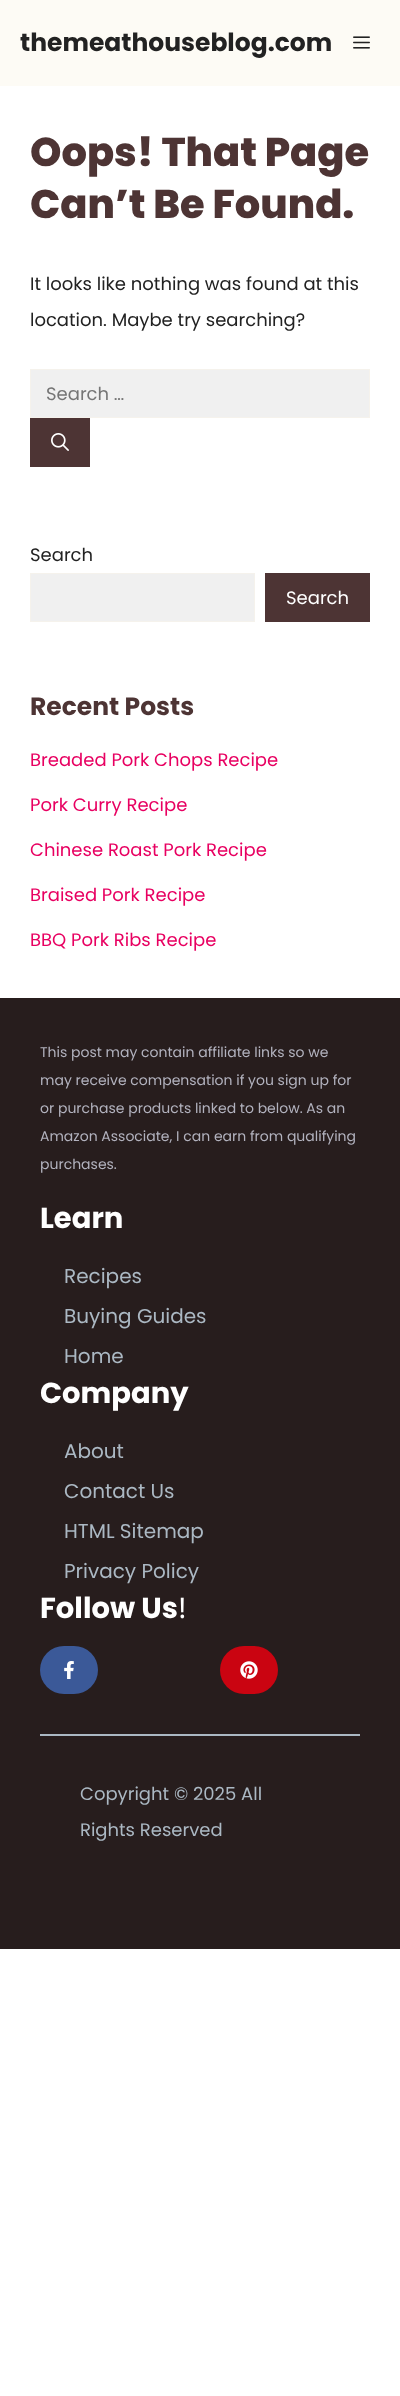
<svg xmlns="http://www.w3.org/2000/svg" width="400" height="2396">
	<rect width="100%" height="100%" fill="#FFFFFF" />
	<rect x="0" y="0" width="400" height="86" fill="#FDFBF5" />
	<text x="20" y="51" font-family="Poppins" font-size="25" font-weight="700" fill="#222222">themeathouseblog.com</text>
	<image x="353" y="36" width="17" height="13" href="assets/img1.png" />
	<g font-family="Poppins" font-size="40" font-weight="800" fill="#4D3434">
		<text x="30" y="166">Oops! That Page</text>
		<text x="30" y="218">Can’t Be Found.</text>
	</g>
	<g font-family="Poppins" font-size="18" fill="#222222">
		<text x="30" y="290">It looks like nothing was found at this</text>
		<text x="30" y="326">location. Maybe try searching?</text>
	</g>
	<rect x="30.5" y="369.5" width="339" height="48" fill="#F0F0F0" stroke="#F5F2EC" />
	<text x="46" y="400" font-family="Poppins" font-size="18" fill="#757575">Search …</text>
	<rect x="30" y="418" width="60" height="49" fill="#4D3434" />
	<image x="51" y="433" width="18" height="18" href="assets/img2.png" />
	<text x="30" y="561" font-family="Poppins" font-size="18" fill="#222222">Search</text>
	<rect x="30.5" y="573.5" width="224" height="48" fill="#F0F0F0" stroke="#F5F2EC" />
	<rect x="265" y="573" width="105" height="49" fill="#4D3434" />
	<text x="286" y="604" font-family="Poppins" font-size="18" fill="#FFFFFF">Search</text>
	<text x="30" y="715" font-family="Poppins" font-size="25" font-weight="700" fill="#4D3434">Recent Posts</text>
	<g font-family="Poppins" font-size="18" fill="#E80061">
		<text x="30" y="766">Breaded Pork Chops Recipe</text>
		<text x="30" y="811">Pork Curry Recipe</text>
		<text x="30" y="856">Chinese Roast Pork Recipe</text>
		<text x="30" y="901">Braised Pork Recipe</text>
		<text x="30" y="946">BBQ Pork Ribs Recipe</text>
	</g>
	<rect x="0" y="998" width="400" height="951" fill="#271D1D" />
	<g font-family="Poppins" font-size="14" fill="#B2B2BE">
		<text x="40" y="1057">This post may contain affiliate links so we</text>
		<text x="40" y="1085">may receive compensation if you sign up for</text>
		<text x="40" y="1113">or purchase products linked to below. As an</text>
		<text x="40" y="1141">Amazon Associate, I can earn from qualifying</text>
		<text x="40" y="1169">purchases.</text>
	</g>
	<text x="40" y="1228" font-family="Poppins" font-size="29" font-weight="700" fill="#FFFFFF">Learn</text>
	<g font-family="Poppins" font-size="20" fill="#ABB8C3">
		<text x="64" y="1283">Recipes</text>
		<text x="64" y="1323">Buying Guides</text>
		<text x="64" y="1363">Home</text>
	</g>
	<text x="40" y="1403" font-family="Poppins" font-size="29" font-weight="700" fill="#FFFFFF">Company</text>
	<g font-family="Poppins" font-size="20" fill="#ABB8C3">
		<text x="64" y="1458">About</text>
		<text x="64" y="1498">Contact Us</text>
		<text x="64" y="1538">HTML Sitemap</text>
		<text x="64" y="1578">Privacy Policy</text>
	</g>
	<text x="40" y="1618" font-family="Poppins" font-size="29" font-weight="700" fill="#FFFFFF">Follow Us</text>
	<text x="178" y="1618" font-family="Poppins" font-size="29" fill="#FFFFFF">!</text>
	<rect x="40" y="1646" width="58" height="48" rx="24" fill="#3B5998" />
	<image x="64" y="1661" width="10" height="18" href="assets/img3.png" />
	<rect x="220" y="1646" width="58" height="48" rx="24" fill="#CA0411" />
	<image x="240" y="1661" width="18" height="18" href="assets/img4.png" />
	<rect x="40" y="1734" width="320" height="2" fill="#ABB8C3" />
	<g font-family="Poppins" font-size="18" fill="#ABB8C3">
		<text x="80" y="1800">Copyright © 2025 All</text>
		<text x="80" y="1836">Rights Reserved</text>
	</g>
</svg>
